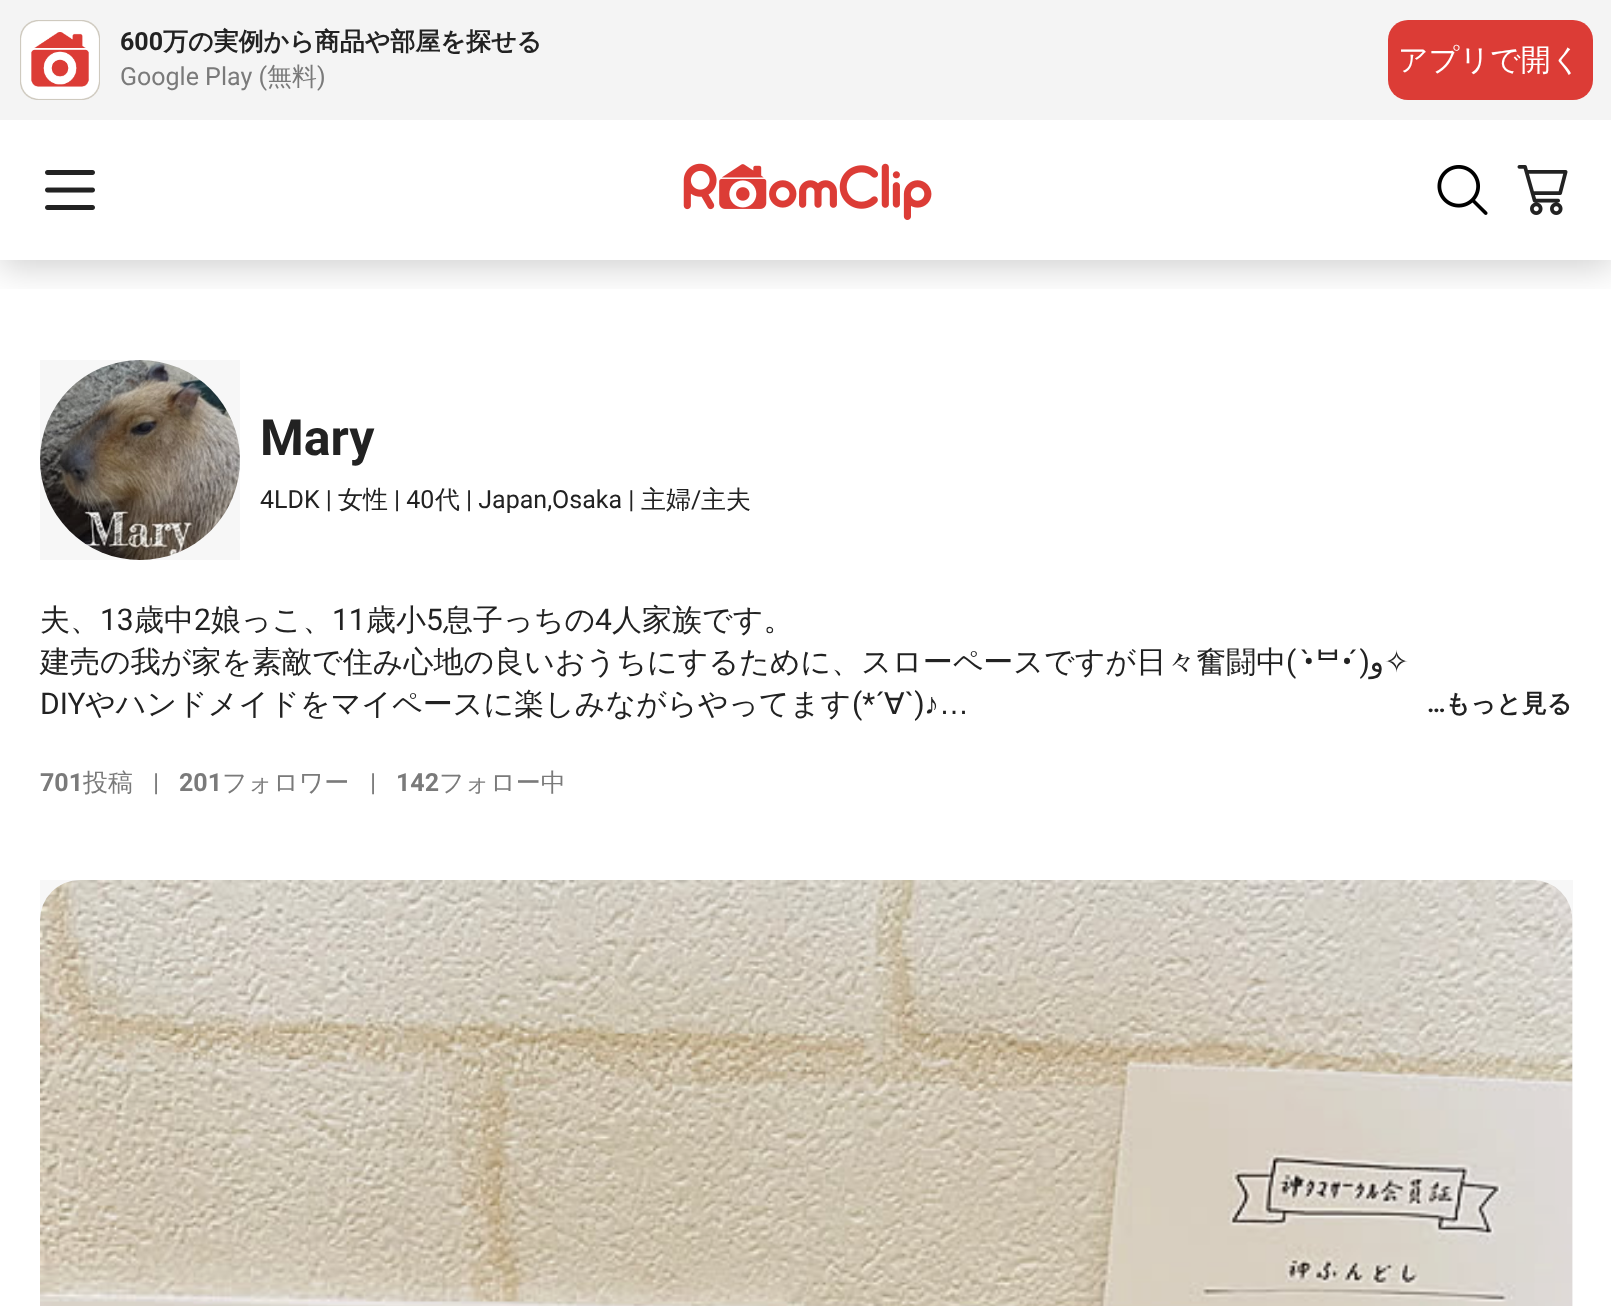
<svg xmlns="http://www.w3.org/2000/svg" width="1611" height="1306">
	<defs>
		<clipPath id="clip1"><rect x="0" y="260" width="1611" height="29" /></clipPath>
	</defs>
	<rect width="100%" height="100%" fill="#FFFFFF" />
	<g clip-path="url(#clip1)">
		<rect x="0" y="8" width="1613" height="260" fill="#000000" fill-opacity="0.18" filter="blur(17.5px)" />
	</g>
	<rect x="0" y="0" width="1611" height="120" fill="#F4F4F4" />
	<image x="20" y="20" width="80" height="80" href="assets/img1.png" />
	<text x="120" y="50" font-family="Roboto" font-size="25" font-weight="700" fill="#222222">600</text>
	<text x="163" y="50" font-family="WenQuanYi Zen Hei" font-size="25" font-weight="700" fill="#222222">万の実例から商品や部屋を探せる</text>
	<text x="120" y="85" font-family="Roboto" font-size="25" fill="#7A7A7A">Google Play (</text>
	<text x="267" y="85" font-family="WenQuanYi Zen Hei" font-size="25" font-weight="500" fill="#7A7A7A">無料</text>
	<text x="317" y="85" font-family="Roboto" font-size="25" fill="#7A7A7A">)</text>
	<rect x="1388" y="20" width="205" height="80" rx="20" fill="#DC3C36" />
	<text x="1398" y="70" font-family="WenQuanYi Zen Hei" font-size="30" font-weight="500" fill="#FFFFFF">アプリで開く</text>
	<image x="45" y="170" width="50" height="40" href="assets/img2.png" />
	<image x="683" y="163" width="249" height="57" href="assets/img3.png" />
	<image x="1437" y="165" width="51" height="50" href="assets/img4.png" />
	<image x="1517" y="165" width="51" height="50" href="assets/img5.png" />
	<image x="40" y="360" width="200" height="200" href="assets/img6.png" />
	<rect x="40" y="360" width="200" height="200" fill="#000000" fill-opacity="0.03" />
	<text x="260" y="455" font-family="Roboto" font-size="50" font-weight="700" fill="#222222">Mary</text>
	<text x="260" y="508" font-family="Roboto" font-size="25" fill="#222222">4LDK |</text>
	<text x="338" y="508" font-family="WenQuanYi Zen Hei" font-size="25" font-weight="500" fill="#222222">女性</text>
	<text x="394" y="508" font-family="Roboto" font-size="25" fill="#222222">| 40</text>
	<text x="435" y="508" font-family="WenQuanYi Zen Hei" font-size="25" font-weight="500" fill="#222222">代</text>
	<text x="466" y="508" font-family="Roboto" font-size="25" fill="#222222">| Japan,Osaka |</text>
	<text x="641" y="508" font-family="WenQuanYi Zen Hei" font-size="25" font-weight="500" fill="#222222">主婦</text>
	<text x="691" y="508" font-family="Roboto" font-size="25" fill="#222222">/</text>
	<text x="701" y="508" font-family="WenQuanYi Zen Hei" font-size="25" font-weight="500" fill="#222222">主夫</text>
	<text x="40" y="630" font-family="WenQuanYi Zen Hei" font-size="30" font-weight="500" fill="#222222">夫、</text>
	<text x="100" y="630" font-family="Roboto" font-size="30" fill="#222222">13</text>
	<text x="134" y="630" font-family="WenQuanYi Zen Hei" font-size="30" font-weight="500" fill="#222222">歳中</text>
	<text x="194" y="630" font-family="Roboto" font-size="30" fill="#222222">2</text>
	<text x="211" y="630" font-family="WenQuanYi Zen Hei" font-size="30" font-weight="500" fill="#222222">娘っこ、</text>
	<text x="332" y="630" font-family="Roboto" font-size="30" fill="#222222">11</text>
	<text x="366" y="630" font-family="WenQuanYi Zen Hei" font-size="30" font-weight="500" fill="#222222">歳小</text>
	<text x="426" y="630" font-family="Roboto" font-size="30" fill="#222222">5</text>
	<text x="443" y="630" font-family="WenQuanYi Zen Hei" font-size="30" font-weight="500" fill="#222222">息子っちの</text>
	<text x="595" y="630" font-family="Roboto" font-size="30" fill="#222222">4</text>
	<g font-family="WenQuanYi Zen Hei" font-size="30" font-weight="500" fill="#222222">
		<text x="612" y="630">人家族です。</text>
		<text x="40" y="672">建売の我が家を素敵で住み心地の良いおうちにするために、スローペースですが日々奮闘中</text>
	</g>
	<text x="1286" y="672" font-family="Roboto" font-size="30" fill="#222222">( •̀</text>
	<text x="1314" y="672" font-family="Noto Sans CJK JP" font-size="30" fill="#222222">ᄇ</text>
	<text x="1342" y="672" font-family="Roboto" font-size="30" fill="#222222">• ́)</text>
	<text x="1384" y="672" font-family="DejaVu Sans" font-size="30" direction="rtl" fill="#222222">ﻭ</text>
	<text x="1384" y="672" font-family="DejaVu Sans" font-size="30" fill="#222222">✧</text>
	<text x="40" y="714" font-family="Roboto" font-size="30" fill="#222222">DIY</text>
	<text x="85" y="714" font-family="WenQuanYi Zen Hei" font-size="30" font-weight="500" fill="#222222">やハンドメイドをマイペースに楽しみながらやってます</text>
	<text x="852" y="714" font-family="Roboto" font-size="30" fill="#222222">(*´</text>
	<text x="884" y="714" font-family="DejaVu Sans" font-size="30" fill="#222222">∀</text>
	<text x="905" y="714" font-family="Roboto" font-size="30" fill="#222222">`)</text>
	<text x="924" y="714" font-family="Liberation Sans" font-size="30" fill="#222222">♪…</text>
	<text x="1427" y="712" font-family="Roboto" font-size="25" font-weight="700" fill="#222222">…</text>
	<text x="1445" y="712" font-family="WenQuanYi Zen Hei" font-size="25" font-weight="700" fill="#222222">もっと見る</text>
	<text x="40" y="791" font-family="Roboto" font-size="25" font-weight="700" fill="#7A7A7A">701</text>
	<text x="83" y="791" font-family="WenQuanYi Zen Hei" font-size="25" font-weight="500" fill="#7A7A7A">投稿</text>
	<text x="153" y="791" font-family="Roboto" font-size="25" fill="#7A7A7A">|</text>
	<text x="179" y="791" font-family="Roboto" font-size="25" font-weight="700" fill="#7A7A7A">201</text>
	<text x="222" y="791" font-family="WenQuanYi Zen Hei" font-size="25" font-weight="500" fill="#7A7A7A">フォロワー</text>
	<text x="370" y="791" font-family="Roboto" font-size="25" fill="#7A7A7A">|</text>
	<text x="396" y="791" font-family="Roboto" font-size="25" font-weight="700" fill="#7A7A7A">142</text>
	<text x="439" y="791" font-family="WenQuanYi Zen Hei" font-size="25" font-weight="500" fill="#7A7A7A">フォロー中</text>
	<image x="40" y="880" width="1533" height="426" href="assets/img7.png" />
	<rect x="40" y="880" width="1533" height="426" fill="#000000" fill-opacity="0.03" />
</svg>
